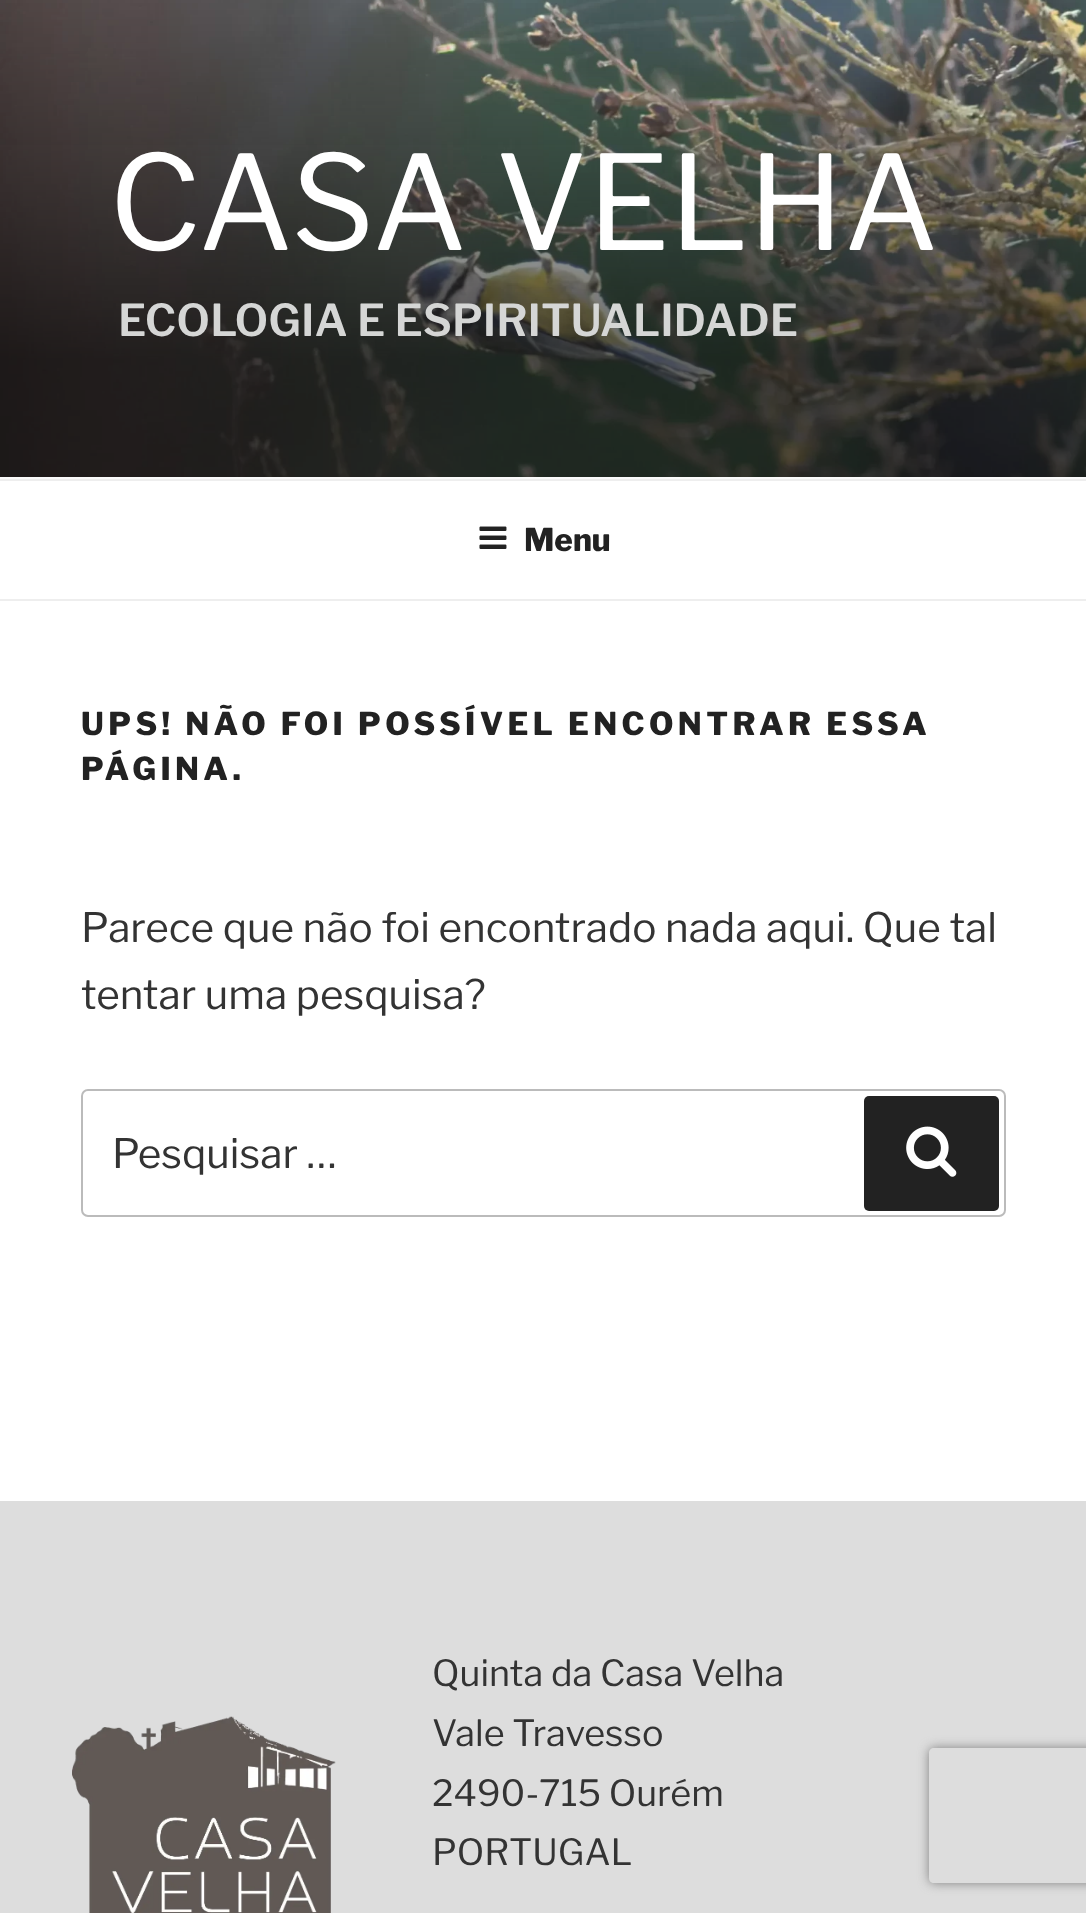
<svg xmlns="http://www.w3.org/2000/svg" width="1086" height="1913">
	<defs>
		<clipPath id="clip1"><path d="M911 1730H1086V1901H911ZM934 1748H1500C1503 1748 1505 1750 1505 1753V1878C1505 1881 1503 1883 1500 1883H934C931 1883 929 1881 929 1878V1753C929 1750 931 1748 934 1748Z" clip-rule="evenodd" /></clipPath>
	</defs>
	<rect width="100%" height="100%" fill="#FFFFFF" />
	<rect x="0" y="477" width="1086" height="2" fill="#FAFAFA" />
	<image x="0" y="0" width="1086" height="477" href="assets/img1.png" />
	<text x="109" y="250" font-family="'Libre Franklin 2'" font-size="130.5" font-weight="100" fill="#FFFFFF">CASA VELHA</text>
	<text x="118" y="336" font-family="'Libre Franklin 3'" font-size="43.9" font-weight="100" fill="#D5D6D5">ECOLOGIA E ESPIRITUALIDADE</text>
	<rect x="0" y="479" width="1086" height="2" fill="#EEEEEE" />
	<rect x="0" y="599" width="1086" height="2" fill="#EEEEEE" />
	<image x="479" y="526" width="28" height="23" href="assets/img2.png" />
	<text x="524" y="551" font-family="Libre Franklin" font-size="31.5" font-weight="100" fill="#222222">Menu</text>
	<g font-family="Libre Franklin" font-size="31.5" font-weight="100" letter-spacing="4.4" fill="#222222">
		<text x="81" y="735">UPS! NÃO FOI POSSÍVEL ENCONTRAR ESSA</text>
		<text x="81" y="780">PÁGINA.</text>
	</g>
	<g font-family="'Libre Franklin 2'" font-size="40.5" font-weight="100" fill="#333333">
		<text x="81" y="942">Parece que não foi encontrado nada aqui. Que tal</text>
		<text x="81" y="1009">tentar uma pesquisa?</text>
	</g>
	<rect x="82" y="1090" width="923" height="126" rx="6" fill="none" stroke="#BBBBBB" stroke-width="2" />
	<text x="112" y="1168" font-family="'Libre Franklin 2'" font-size="40.5" font-weight="100" fill="#333333">Pesquisar …</text>
	<rect x="864" y="1096" width="135" height="115" rx="5" fill="#222222" />
	<image x="906" y="1126" width="51" height="51" href="assets/img3.png" />
	<rect x="0" y="1501" width="1086" height="412" fill="#DDDDDD" />
	<image x="72" y="1716" width="264" height="197" href="assets/img4.png" />
	<g font-family="'Libre Franklin 2'" font-size="36" font-weight="100" fill="#333333">
		<text x="432" y="1686">Quinta da Casa Velha</text>
		<text x="432" y="1746">Vale Travesso</text>
		<text x="432" y="1806">2490-715 Ourém</text>
		<text x="432" y="1865">PORTUGAL</text>
	</g>
	<g clip-path="url(#clip1)">
		<rect x="929" y="1748" width="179" height="135" rx="5" fill="#808080" filter="blur(5.5px)" />
	</g>
</svg>
